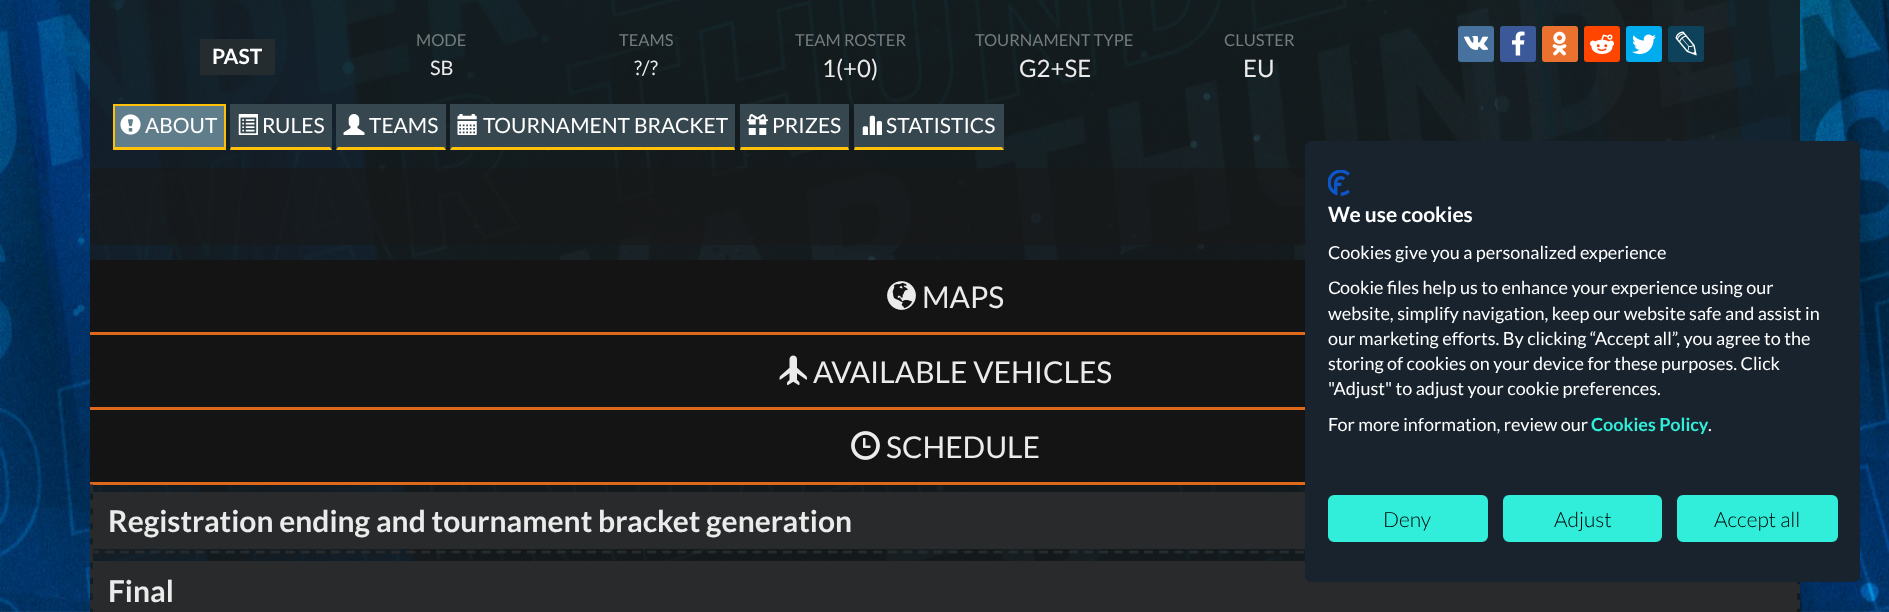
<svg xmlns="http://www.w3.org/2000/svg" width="1889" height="612">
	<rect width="100%" height="100%" fill="#FFFFFF" />
	<image x="0" y="0" width="1889" height="612" href="assets/img1.png" />
	<rect x="90" y="0" width="1710" height="26" fill="#171A1C" fill-opacity="0.84" />
	<rect x="90" y="26" width="1710" height="78" fill="#171A1C" fill-opacity="0.84" />
	<rect x="200" y="39" width="75" height="36" fill="#252C30" />
	<text x="212" y="64" font-family="Lato" font-size="21" font-weight="700" fill="#FFFFFF">PAST</text>
	<text x="416" y="46" font-family="Lato" font-size="16.5" fill="#757C7D">MODE</text>
	<text x="430" y="75" font-family="Lato" font-size="20" fill="#EBEBEB">SB</text>
	<text x="619" y="46" font-family="Lato" font-size="16.5" fill="#757C7D">TEAMS</text>
	<text x="634" y="75" font-family="Lato" font-size="20" fill="#EBEBEB">?/?</text>
	<text x="795" y="46" font-family="Lato" font-size="16.5" fill="#757C7D">TEAM ROSTER</text>
	<text x="822" y="77" font-family="Lato" font-size="24" fill="#EBEBEB">1(+0)</text>
	<text x="975" y="46" font-family="Lato" font-size="16.5" fill="#757C7D">TOURNAMENT TYPE</text>
	<text x="1019" y="77" font-family="Lato" font-size="24" fill="#EBEBEB">G2+SE</text>
	<text x="1224" y="46" font-family="Lato" font-size="16.5" fill="#757C7D">CLUSTER</text>
	<text x="1243" y="77" font-family="Lato" font-size="24" fill="#EBEBEB">EU</text>
	<rect x="1458" y="26" width="36" height="36" rx="3" fill="#48729E" />
	<image x="1464" y="36" width="24" height="14" href="assets/img2.png" />
	<rect x="1500" y="26" width="36" height="36" rx="3" fill="#3B5998" />
	<image x="1512" y="31" width="13" height="25" href="assets/img3.png" />
	<rect x="1542" y="26" width="36" height="36" rx="3" fill="#EB722E" />
	<image x="1552" y="31" width="15" height="25" href="assets/img4.png" />
	<rect x="1584" y="26" width="36" height="36" rx="3" fill="#FF4500" />
	<image x="1590" y="34" width="24" height="20" href="assets/img5.png" />
	<rect x="1626" y="26" width="36" height="36" rx="3" fill="#00ACED" />
	<image x="1632" y="34" width="24" height="20" href="assets/img6.png" />
	<rect x="1668" y="26" width="36" height="36" rx="3" fill="#0D425A" />
	<image x="1675" y="31" width="22" height="25" href="assets/img7.png" />
	<rect x="90" y="104" width="1710" height="49" fill="#171A1C" fill-opacity="0.84" />
	<rect x="115" y="106" width="109" height="41" fill="#607D8B" />
	<rect x="113" y="104" width="112" height="2" fill="#FFC107" />
	<rect x="224" y="104" width="2" height="46" fill="#FFC107" />
	<rect x="113" y="147" width="112" height="3" fill="#FFC107" />
	<rect x="113" y="104" width="2" height="46" fill="#FFC107" />
	<image x="120" y="114" width="21" height="21" href="assets/img8.png" />
	<text x="145" y="133" font-family="Lato" font-size="21" fill="#FFFFFF">ABOUT</text>
	<rect x="230" y="104" width="102" height="46" fill="#37474F" />
	<path d="M332 150H230L231 147H330Z" fill="#FFC107" />
	<image x="238" y="114" width="20" height="21" href="assets/img9.png" />
	<text x="262" y="133" font-family="Lato" font-size="21" fill="#FFFFFF">RULES</text>
	<rect x="336" y="104" width="110" height="46" fill="#37474F" />
	<path d="M446 150H336L338 147H444Z" fill="#FFC107" />
	<image x="343" y="114" width="22" height="21" href="assets/img10.png" />
	<text x="369" y="133" font-family="Lato" font-size="21" fill="#FFFFFF">TEAMS</text>
	<rect x="450" y="104" width="285" height="46" fill="#37474F" />
	<path d="M735 150H450L452 147H734Z" fill="#FFC107" />
	<image x="457" y="114" width="20" height="21" href="assets/img11.png" />
	<text x="483" y="133" font-family="Lato" font-size="21" fill="#FFFFFF">TOURNAMENT BRACKET</text>
	<rect x="740" y="104" width="109" height="46" fill="#37474F" />
	<path d="M849 150H740L741 147H848Z" fill="#FFC107" />
	<image x="747" y="114" width="21" height="21" href="assets/img12.png" />
	<text x="772" y="133" font-family="Lato" font-size="21" fill="#FFFFFF">PRIZES</text>
	<rect x="854" y="104" width="150" height="46" fill="#37474F" />
	<path d="M1004 150H854L855 147H1002Z" fill="#FFC107" />
	<image x="862" y="115" width="20" height="20" href="assets/img13.png" />
	<text x="886" y="133" font-family="Lato" font-size="21" fill="#FFFFFF">STATISTICS</text>
	<rect x="90" y="153" width="1710" height="459" fill="#171A1C" fill-opacity="0.84" />
	<rect x="90" y="168" width="1710" height="77" rx="6" fill="#191818" fill-opacity="0.61" />
	<rect x="90" y="260" width="1215" height="72" fill="#151414" />
	<rect x="90" y="332" width="1215" height="3" fill="#DF691A" />
	<image x="887" y="281" width="29" height="29" href="assets/img14.png" />
	<text x="922" y="308" font-family="Lato" font-size="30" fill="#EBEBEB">MAPS</text>
	<rect x="90" y="335" width="1215" height="72" fill="#151414" />
	<rect x="90" y="407" width="1215" height="3" fill="#DF691A" />
	<image x="779" y="355" width="28" height="30" href="assets/img15.png" />
	<text x="813" y="383" font-family="Lato" font-size="30" fill="#EBEBEB">AVAILABLE VEHICLES</text>
	<rect x="90" y="410" width="1215" height="72" fill="#151414" />
	<rect x="90" y="482" width="1215" height="3" fill="#DF691A" />
	<image x="851" y="431" width="29" height="29" href="assets/img16.png" />
	<text x="886" y="458" font-family="Lato" font-size="30" fill="#EBEBEB">SCHEDULE</text>
	<path d="M90 552H1800" fill="none" stroke="#282A2B" stroke-width="3" stroke-dasharray="9 6.06" />
	<path d="M91.5 484.5V553.5" fill="none" stroke="#282A2B" stroke-width="3" stroke-dasharray="9 6" />
	<rect x="93" y="492" width="1212" height="57" fill="#282A2B" />
	<text x="108" y="532" font-family="Lato" font-size="30" font-weight="700" fill="#EBEBEB">Registration ending and tournament bracket generation</text>
	<path d="M1798.5 553.5V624" fill="none" stroke="#282A2B" stroke-width="3" stroke-dasharray="9 6.38" />
	<path d="M91.5 553.5V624" fill="none" stroke="#282A2B" stroke-width="3" stroke-dasharray="9 6.38" />
	<rect x="93" y="561" width="1704" height="51" fill="#282A2B" />
	<text x="108" y="602" font-family="Lato" font-size="30" font-weight="700" fill="#EBEBEB">Final</text>
	<rect x="1305" y="141" width="555" height="441" rx="6" fill="#18232E" />
	<image x="1328" y="170" width="22" height="26" href="assets/img17.png" />
	<text x="1328" y="222" font-family="Lato" font-size="21" font-weight="700" fill="#FFFFFF">We use cookies</text>
	<text x="1328" y="259" font-family="Lato" font-size="18" fill="#FFFFFF">Cookies give you a personalized experience</text>
	<text x="1328" y="294" font-family="Liberation Sans" font-size="18" fill="#FFFFFF">С</text>
	<g font-family="Lato" font-size="18" fill="#FFFFFF">
		<text x="1340" y="294">ookie files help us to enhance your experience using our</text>
		<text x="1328" y="320">website, simplify navigation, keep our website safe and assist in</text>
		<text x="1328" y="345">our marketing efforts. By clicking “Accept all”, you agree to the</text>
		<text x="1328" y="370">storing of cookies on your device for these purposes. Click</text>
		<text x="1328" y="395">"Adjust" to adjust your cookie preferences.</text>
		<text x="1328" y="431">For more information, review our</text>
	</g>
	<text x="1591" y="431" font-family="Lato" font-size="18" font-weight="700" fill="#31EEDA">Cookies Policy</text>
	<text x="1708" y="431" font-family="Lato" font-size="18" fill="#FFFFFF">.</text>
	<rect x="1329" y="496" width="158" height="45" rx="5" fill="#31EEDA" stroke="#31EEDA" stroke-width="2" />
	<text x="1383" y="527" font-family="Lato" font-size="21" font-weight="300" fill="#000000">Deny</text>
	<rect x="1504" y="496" width="157" height="45" rx="5" fill="#31EEDA" stroke="#31EEDA" stroke-width="2" />
	<text x="1554" y="527" font-family="Lato" font-size="21" font-weight="300" fill="#000000">Adjust</text>
	<rect x="1678" y="496" width="159" height="45" rx="5" fill="#31EEDA" stroke="#31EEDA" stroke-width="2" />
	<text x="1714" y="527" font-family="Lato" font-size="21" font-weight="300" fill="#000000">Accept all</text>
</svg>
